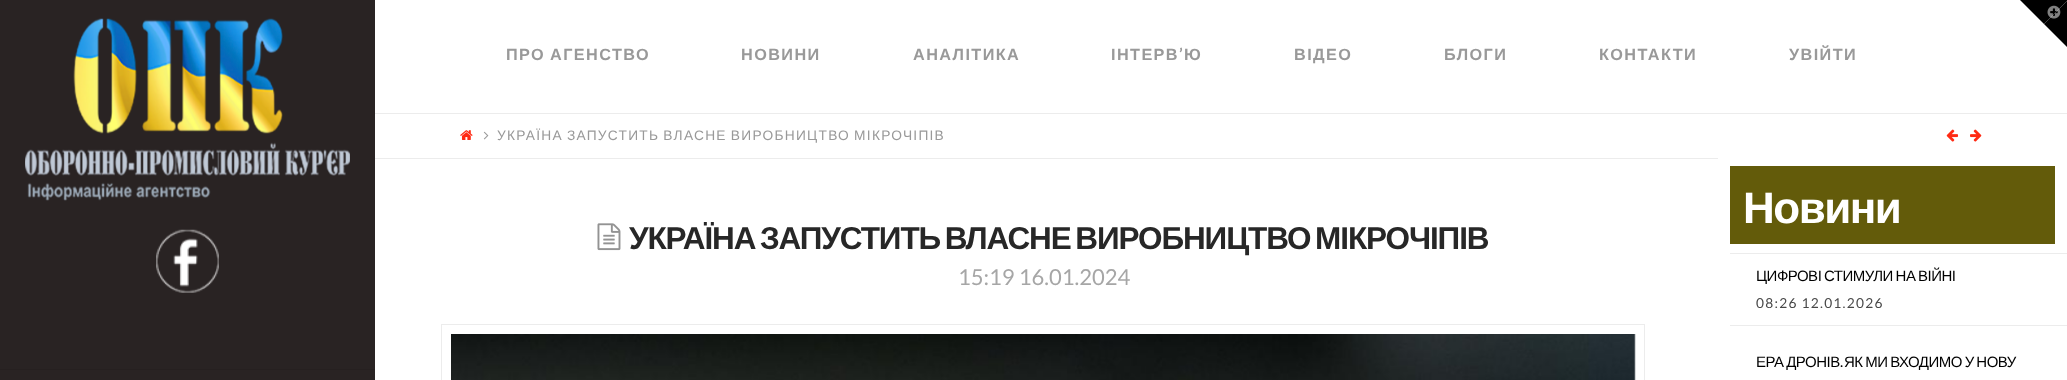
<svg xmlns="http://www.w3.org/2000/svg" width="2067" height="380">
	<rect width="100%" height="100%" fill="#FFFFFF" />
	<path d="M2020 0H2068L2044 24Z" fill="#000000" />
	<path d="M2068 0V48L2044 24Z" fill="#000000" />
	<image x="2047" y="5" width="14" height="14" href="assets/img1.png" />
	<rect x="0" y="0" width="375" height="380" fill="#292323" />
	<image x="25" y="18" width="325" height="183" href="assets/img2.png" />
	<image x="156" y="229" width="63" height="64" href="assets/img3.png" />
	<rect x="0" y="369" width="375" height="1" fill="#262020" />
	<rect x="375" y="113" width="1692" height="1" fill="#ECECEC" />
	<g font-family="Liberation Sans" font-size="16.25" font-weight="700" letter-spacing="1.4" fill="#999999">
		<text x="506" y="60" word-spacing="-1">ПРО АГЕНСТВО</text>
		<text x="741" y="60">НОВИНИ</text>
		<text x="913" y="60">АНАЛІТИКА</text>
		<text x="1111" y="60">ІНТЕРВ</text>
	</g>
	<text x="1179" y="60" font-family="Lato" font-size="16.25" font-weight="700" letter-spacing="1.4" fill="#999999">’</text>
	<g font-family="Liberation Sans" font-size="16.25" font-weight="700" letter-spacing="1.4" fill="#999999">
		<text x="1184" y="60">Ю</text>
		<text x="1294" y="60">ВІДЕО</text>
		<text x="1444" y="60">БЛОГИ</text>
		<text x="1599" y="60">КОНТАКТИ</text>
		<text x="1789" y="60">УВІЙТИ</text>
	</g>
	<rect x="375" y="158" width="1343" height="1" fill="#ECECEC" />
	<image x="460" y="130" width="13" height="10" href="assets/img4.png" />
	<image x="483" y="131" width="6" height="9" href="assets/img5.png" />
	<text x="497" y="140" word-spacing="-1" font-family="Liberation Sans" font-size="13.75" letter-spacing="1.25" fill="#999999">УКРАЇНА ЗАПУСТИТЬ ВЛАСНЕ ВИРОБНИЦТВО МІКРОЧІПІВ</text>
	<image x="1946" y="129" width="13" height="13" href="assets/img6.png" />
	<image x="1970" y="129" width="12" height="13" href="assets/img7.png" />
	<image x="597" y="223" width="24" height="28" href="assets/img8.png" />
	<text x="629" y="249" word-spacing="-3" font-family="Liberation Sans" font-size="31.5" font-weight="700" letter-spacing="-1.1" fill="#272727">УКРАЇНА ЗАПУСТИТЬ ВЛАСНЕ ВИРОБНИЦТВО МІКРОЧІПІВ</text>
	<text x="958" y="285" font-family="Lato" font-size="22" fill="#A6A6A6">15:19 16.01.2024</text>
	<rect x="441.5" y="324.5" width="1203" height="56" fill="none" stroke="#ECECEC" />
	<image x="451" y="334" width="1185" height="46" href="assets/img9.png" />
	<rect x="1730" y="166" width="325" height="78" fill="#635B0A" />
	<text x="1743" y="223" font-family="Liberation Sans" font-size="44" font-weight="700" letter-spacing="-1.5" fill="#FFFFFF">Новини</text>
	<rect x="1730" y="253" width="337" height="1" fill="#ECECEC" />
	<rect x="1730" y="325" width="337" height="1" fill="#ECECEC" />
	<text x="1756" y="281" word-spacing="-1" font-family="Liberation Sans" font-size="15" letter-spacing="-0.5" fill="#000000">ЦИФРОВІ СТИМУЛИ НА ВІЙНІ</text>
	<text x="1756" y="308" font-family="Lato" font-size="13.75" letter-spacing="1.25" fill="#484848">08:26 12.01.2026</text>
	<text x="1756" y="367" word-spacing="-1" font-family="Liberation Sans" font-size="15" letter-spacing="-0.5" fill="#000000">ЕРА ДРОНІВ</text>
	<text x="1840" y="367" font-family="Lato" font-size="15" letter-spacing="-0.5" fill="#000000">.</text>
	<text x="1844" y="367" word-spacing="-1" font-family="Liberation Sans" font-size="15" letter-spacing="-0.5" fill="#000000">ЯК МИ ВХОДИМО У НОВУ</text>
</svg>
